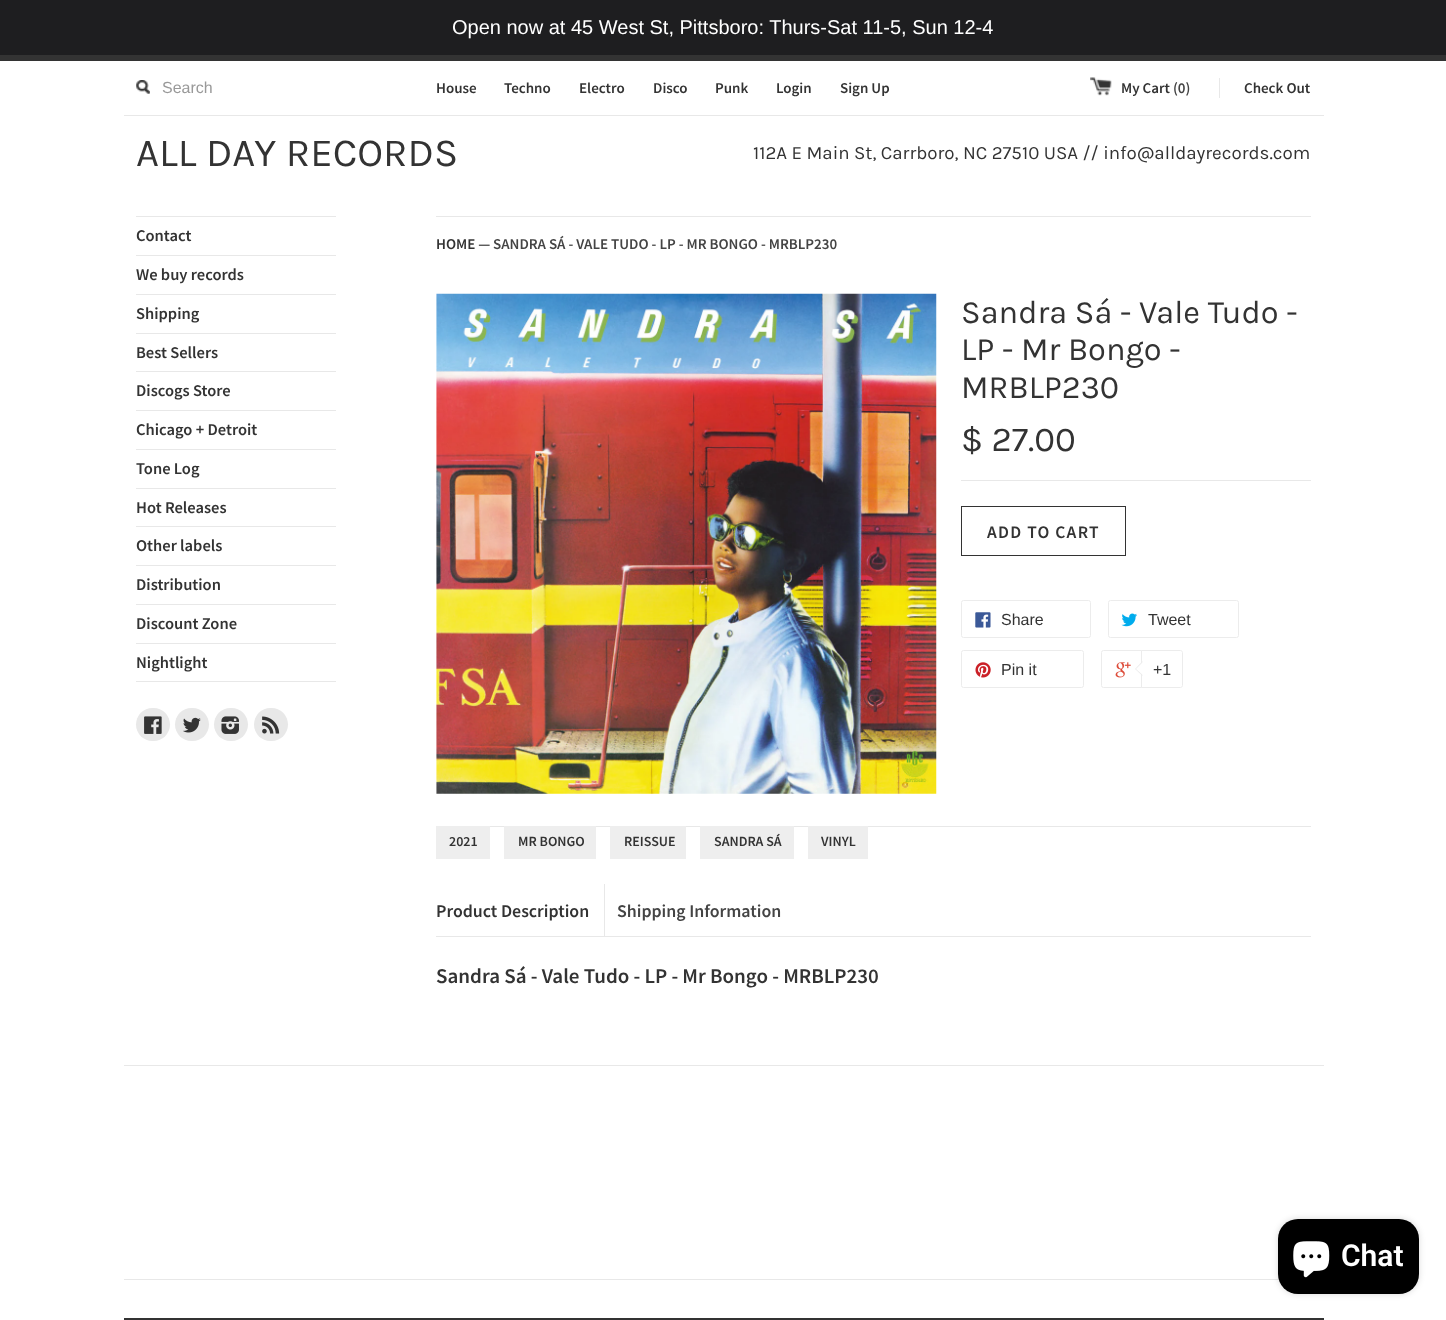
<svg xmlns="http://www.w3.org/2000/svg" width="1446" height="1320">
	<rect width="100%" height="100%" fill="#FFFFFF" />
	<rect x="0" y="0" width="1446" height="55" fill="#1E1E20" />
	<text x="452" y="34" font-family="Liberation Sans" font-size="20" fill="#FFFFFF">Open now at 45 West St, Pittsboro: Thurs-Sat 11-5, Sun 12-4</text>
	<rect x="0" y="55" width="1446" height="6" fill="#333333" />
	<rect x="124" y="115" width="1200" height="1" fill="#E8E8E8" />
	<image x="136" y="80" width="14" height="14" href="assets/img1.png" />
	<text x="162" y="93" font-family="Liberation Sans" font-size="16" fill="#999999">Search</text>
	<g font-family="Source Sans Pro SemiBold" font-size="15" font-weight="600" fill="#333333">
		<text x="436" y="93">House</text>
		<text x="504" y="93">Techno</text>
		<text x="579" y="93">Electro</text>
		<text x="653" y="93">Disco</text>
		<text x="715" y="93">Punk</text>
		<text x="776" y="93">Login</text>
		<text x="840" y="93">Sign Up</text>
	</g>
	<image x="1090" y="77" width="22" height="19" href="assets/img2.png" />
	<text x="1121" y="93" font-family="Source Sans Pro SemiBold" font-size="15" font-weight="600" fill="#333333">My Cart</text>
	<text x="1173" y="93" font-family="Source Sans Pro SemiBold" font-size="15" font-weight="600" fill="#444444">(0)</text>
	<text x="1244" y="93" font-family="Source Sans Pro SemiBold" font-size="15" font-weight="600" fill="#333333">Check Out</text>
	<rect x="1219" y="78" width="1" height="20" fill="#E8E8E8" />
	<text x="136" y="166" font-family="Karla" font-size="40" fill="#333333">ALL DAY RECORDS</text>
	<text x="753" y="159" font-family="Karla" font-size="18.75" fill="#333333">112A E Main St, Carrboro, NC 27510 USA // info@alldayrecords.com</text>
	<rect x="136" y="681" width="200" height="1" fill="#E8E8E8" />
	<rect x="136" y="216" width="200" height="1" fill="#E8E8E8" />
	<text x="136" y="241" font-family="Source Sans Pro SemiBold" font-size="16.5" font-weight="600" fill="#333333">Contact</text>
	<rect x="136" y="255" width="200" height="1" fill="#E8E8E8" />
	<text x="136" y="280" font-family="Source Sans Pro SemiBold" font-size="16.5" font-weight="600" fill="#333333">We buy records</text>
	<rect x="136" y="294" width="200" height="1" fill="#E8E8E8" />
	<text x="136" y="319" font-family="Source Sans Pro SemiBold" font-size="16.5" font-weight="600" fill="#333333">Shipping</text>
	<rect x="136" y="333" width="200" height="1" fill="#E8E8E8" />
	<text x="136" y="358" font-family="Source Sans Pro SemiBold" font-size="16.5" font-weight="600" fill="#333333">Best Sellers</text>
	<rect x="136" y="371" width="200" height="1" fill="#E8E8E8" />
	<text x="136" y="396" font-family="Source Sans Pro SemiBold" font-size="16.5" font-weight="600" fill="#333333">Discogs Store</text>
	<rect x="136" y="410" width="200" height="1" fill="#E8E8E8" />
	<text x="136" y="435" font-family="Source Sans Pro SemiBold" font-size="16.5" font-weight="600" fill="#333333">Chicago + Detroit</text>
	<rect x="136" y="449" width="200" height="1" fill="#E8E8E8" />
	<text x="136" y="474" font-family="Source Sans Pro SemiBold" font-size="16.5" font-weight="600" fill="#333333">Tone Log</text>
	<rect x="136" y="488" width="200" height="1" fill="#E8E8E8" />
	<text x="136" y="513" font-family="Source Sans Pro SemiBold" font-size="16.5" font-weight="600" fill="#333333">Hot Releases</text>
	<rect x="136" y="526" width="200" height="1" fill="#E8E8E8" />
	<text x="136" y="551" font-family="Source Sans Pro SemiBold" font-size="16.5" font-weight="600" fill="#333333">Other labels</text>
	<rect x="136" y="565" width="200" height="1" fill="#E8E8E8" />
	<text x="136" y="590" font-family="Source Sans Pro SemiBold" font-size="16.5" font-weight="600" fill="#333333">Distribution</text>
	<rect x="136" y="604" width="200" height="1" fill="#E8E8E8" />
	<text x="136" y="629" font-family="Source Sans Pro SemiBold" font-size="16.5" font-weight="600" fill="#333333">Discount Zone</text>
	<rect x="136" y="643" width="200" height="1" fill="#E8E8E8" />
	<text x="136" y="668" font-family="Source Sans Pro SemiBold" font-size="16.5" font-weight="600" fill="#333333">Nightlight</text>
	<rect x="136" y="708" width="34" height="33" rx="16.5" fill="#E8E8E8" />
	<image x="144" y="716" width="18" height="18" href="assets/img3.png" />
	<rect x="175" y="708" width="34" height="33" rx="16.5" fill="#E8E8E8" />
	<image x="183" y="717" width="18" height="16" href="assets/img4.png" />
	<rect x="214" y="708" width="34" height="33" rx="16.5" fill="#E8E8E8" />
	<image x="221" y="716" width="18" height="18" href="assets/img5.png" />
	<rect x="254" y="708" width="34" height="33" rx="16.5" fill="#E8E8E8" />
	<image x="262" y="716" width="18" height="18" href="assets/img6.png" />
	<rect x="436" y="216" width="875" height="1" fill="#E8E8E8" />
	<text x="436" y="249" font-family="Source Sans Pro SemiBold" font-size="15" font-weight="600" fill="#333333">HOME —</text>
	<text x="493" y="249" font-family="Source Sans Pro SemiBold" font-size="15" font-weight="600" fill="#444444">SANDRA SÁ - VALE TUDO - LP - MR BONGO - MRBLP230</text>
	<image x="436" y="293" width="501" height="501" href="assets/img7.png" />
	<g font-family="Karla" font-size="32.5" fill="#333333">
		<text x="961" y="323">Sandra Sá - Vale Tudo -</text>
		<text x="961" y="360">LP - Mr Bongo -</text>
		<text x="961" y="398">MRBLP230</text>
	</g>
	<text x="961" y="451" font-family="Karla" font-size="35" fill="#333333">$ 27.00</text>
	<rect x="961" y="480" width="350" height="1" fill="#E8E8E8" />
	<rect x="961.5" y="506.5" width="164" height="49" fill="none" stroke="#333333" />
	<text x="987" y="538" font-family="Source Sans Pro SemiBold" font-size="17.5" font-weight="600" letter-spacing="1.25" fill="#333333">ADD TO CART</text>
	<rect x="961.5" y="600.5" width="129" height="37" rx="2" fill="none" stroke="#ECECEC" />
	<image x="975" y="612" width="16" height="16" href="assets/img8.png" />
	<text x="1001" y="625" font-family="Liberation Sans" font-size="16" fill="#333333">Share</text>
	<rect x="1108.5" y="600.5" width="130" height="37" rx="2" fill="none" stroke="#ECECEC" />
	<image x="1121" y="613" width="16" height="14" href="assets/img9.png" />
	<text x="1148" y="625" font-family="Liberation Sans" font-size="16" fill="#333333">Tweet</text>
	<rect x="961.5" y="650.5" width="122" height="37" rx="2" fill="none" stroke="#ECECEC" />
	<image x="975" y="662" width="16" height="16" href="assets/img10.png" />
	<text x="1001" y="675" font-family="Liberation Sans" font-size="16" fill="#333333">Pin it</text>
	<rect x="1101.5" y="650.5" width="79" height="37" rx="2" fill="none" stroke="#ECECEC" />
	<image x="1115" y="662" width="16" height="16" href="assets/img11.png" />
	<path d="M1141.5 650.5H1180.5C1181.5 650.5 1182.5 651.5 1182.5 652.5V685.5C1182.5 686.5 1181.5 687.5 1180.5 687.5H1141.5Z" fill="#FFFFFF" stroke="#ECECEC" />
	<path d="M1142.5 661V676L1135 669Z" fill="#ECECEC" />
	<path d="M1144 661V676L1136 669Z" fill="#FFFFFF" />
	<text x="1153" y="675" font-family="Liberation Sans" font-size="16" fill="#333333">+1</text>
	<rect x="490" y="826" width="821" height="1" fill="#E8E8E8" />
	<rect x="436" y="826" width="54" height="33" fill="#EEEEEE" />
	<text x="449" y="846" font-family="Source Sans Pro SemiBold" font-size="14" font-weight="600" fill="#333333">2021</text>
	<rect x="504" y="826" width="92" height="33" fill="#EEEEEE" />
	<text x="518" y="846" font-family="Source Sans Pro SemiBold" font-size="14" font-weight="600" fill="#333333">MR BONGO</text>
	<rect x="610" y="826" width="76" height="33" fill="#EEEEEE" />
	<text x="624" y="846" font-family="Source Sans Pro SemiBold" font-size="14" font-weight="600" fill="#333333">REISSUE</text>
	<rect x="700" y="826" width="94" height="33" fill="#EEEEEE" />
	<text x="714" y="846" font-family="Source Sans Pro SemiBold" font-size="14" font-weight="600" fill="#333333">SANDRA SÁ</text>
	<rect x="808" y="826" width="60" height="33" fill="#EEEEEE" />
	<text x="821" y="846" font-family="Source Sans Pro SemiBold" font-size="14" font-weight="600" fill="#333333">VINYL</text>
	<rect x="436" y="936" width="875" height="1" fill="#E8E8E8" />
	<rect x="604" y="884" width="1" height="52" fill="#E8E8E8" />
	<text x="436" y="917" font-family="Source Sans Pro SemiBold" font-size="17.9" font-weight="600" fill="#333333">Product Description</text>
	<text x="617" y="917" font-family="Source Sans Pro SemiBold" font-size="17.9" font-weight="600" fill="#444444">Shipping Information</text>
	<text x="436" y="983" font-family="Source Sans Pro SemiBold" font-size="21" font-weight="600" fill="#333333">Sandra Sá - Vale Tudo - LP - Mr Bongo - MRBLP230</text>
	<rect x="124" y="1318" width="1200" height="2" fill="#333333" />
	<rect x="124" y="1065" width="1200" height="1" fill="#E8E8E8" />
	<rect x="124" y="1279" width="1155" height="1" fill="#E8E8E8" />
	<rect x="1278" y="1219" width="141" height="75" rx="20" fill="#000000" fill-opacity="0.15" filter="blur(3px)" />
	<rect x="1278" y="1219" width="141" height="75" rx="20" fill="#000000" />
	<image x="1293" y="1241" width="37" height="37" href="assets/img12.png" />
	<text x="1341" y="1266" font-family="Roboto" font-size="30" font-weight="600" fill="#FFFFFF">Chat</text>
</svg>
